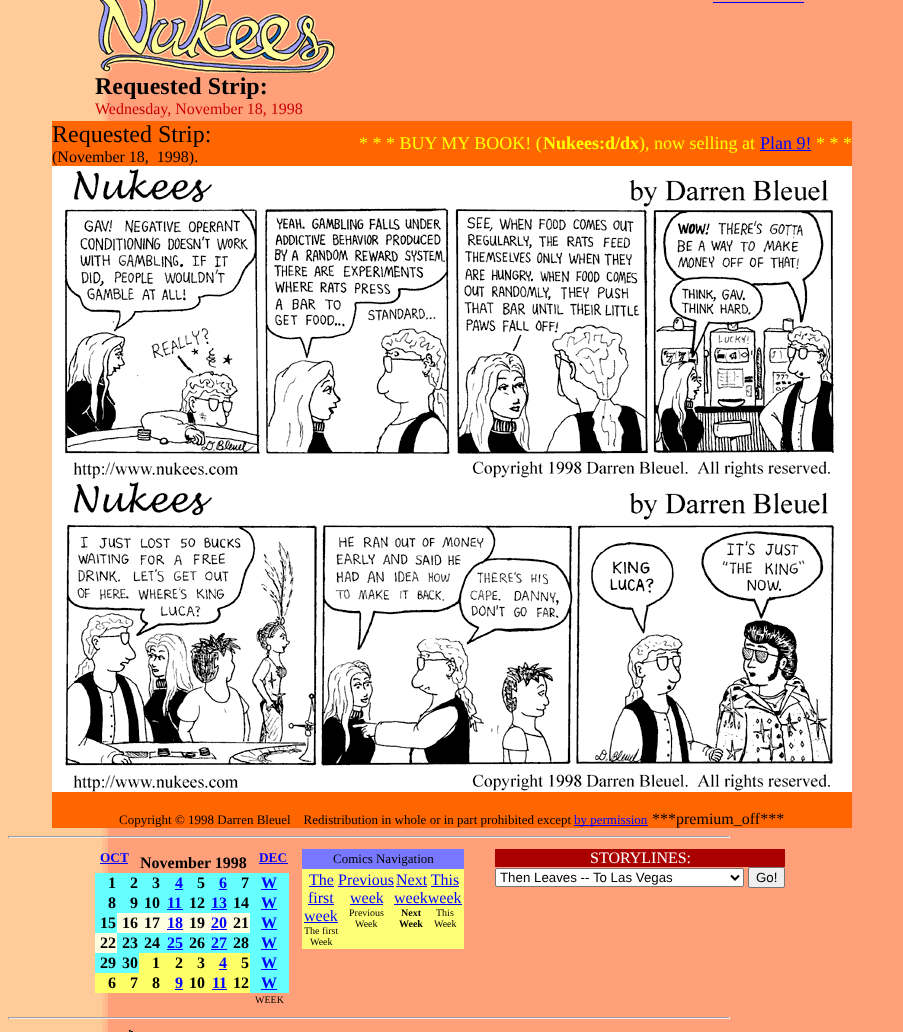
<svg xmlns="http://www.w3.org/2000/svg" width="903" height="1032">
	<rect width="100%" height="100%" fill="#FFFFFF" />
	<image x="0" y="0" width="903" height="1032" href="assets/img1.png" />
	<rect x="713" y="2" width="91" height="1" fill="#0000FF" />
	<image x="97" y="0" width="238" height="73" href="assets/img2.png" />
	<text x="95" y="94" font-family="Liberation Serif" font-size="24" font-weight="700" fill="#000000">Requested Strip:</text>
	<text x="95" y="114" font-family="Liberation Serif" font-size="16" fill="#CC0000">Wednesday, November 18, 1998</text>
	<rect x="52" y="121" width="800" height="45" fill="#FF6600" />
	<text x="52" y="142" font-family="Liberation Serif" font-size="24" fill="#000000">Requested Strip:</text>
	<text x="52" y="162" font-family="Liberation Serif" font-size="16" fill="#000000" xml:space="preserve">(November 18,  1998).</text>
	<text x="359" y="149" font-family="Liberation Serif" font-size="18" fill="#FFFF00">* * * BUY MY BOOK! (</text>
	<text x="543" y="149" font-family="Liberation Serif" font-size="18" font-weight="700" fill="#FFFF00">Nukees:d/dx</text>
	<text x="639" y="149" font-family="Liberation Serif" font-size="18" fill="#FFFF00">), now selling at</text>
	<text x="760" y="149" font-family="Liberation Serif" font-size="18" fill="#0000FF">Plan 9!</text>
	<rect x="760" y="150" width="51" height="1" fill="#0000FF" />
	<text x="816" y="149" font-family="Liberation Serif" font-size="18" fill="#FFFF00">* * *</text>
	<rect x="52" y="792" width="800" height="36" fill="#FF6600" />
	<image x="52" y="166" width="800" height="313" href="assets/img3.png" />
	<image x="52" y="479" width="800" height="313" href="assets/img4.png" />
	<text x="119" y="824" font-family="Liberation Serif" font-size="13" fill="#000000" xml:space="preserve">Copyright © 1998 Darren Bleuel    Redistribution in whole or in part prohibited except</text>
	<rect x="574" y="825" width="74" height="1" fill="#0000FF" />
	<text x="574" y="824" font-family="Liberation Serif" font-size="13" fill="#0000FF">by permission</text>
	<text x="652" y="824" font-family="Liberation Serif" font-size="16" fill="#000000">***premium_off***</text>
	<rect x="8" y="836" width="722" height="1" fill="#9F9F9F" />
	<rect x="729" y="836" width="1" height="2" fill="#EEEEEE" />
	<rect x="8" y="837" width="722" height="1" fill="#EEEEEE" />
	<rect x="8" y="836" width="1" height="2" fill="#9F9F9F" />
	<text x="100" y="862" font-family="Liberation Serif" font-size="13.3" font-weight="700" fill="#0000FF">OCT</text>
	<rect x="100" y="863" width="28" height="1" fill="#0000FF" />
	<text x="140" y="868" font-family="Liberation Serif" font-size="16" font-weight="700" fill="#000000">November 1998</text>
	<text x="259" y="862" font-family="Liberation Serif" font-size="13.3" font-weight="700" fill="#0000FF">DEC</text>
	<rect x="259" y="863" width="29" height="1" fill="#0000FF" />
	<rect x="95" y="873" width="194" height="60" fill="#66FFFF" />
	<g font-family="Liberation Serif" font-size="16" font-weight="700" fill="#000000">
		<text x="108" y="888">1</text>
		<text x="130" y="888">2</text>
		<text x="152" y="888">3</text>
	</g>
	<text x="175" y="888" font-family="Liberation Serif" font-size="16" font-weight="700" fill="#0000FF">4</text>
	<rect x="175" y="889" width="8" height="1" fill="#0000FF" />
	<text x="197" y="888" font-family="Liberation Serif" font-size="16" font-weight="700" fill="#000000">5</text>
	<text x="219" y="888" font-family="Liberation Serif" font-size="16" font-weight="700" fill="#0000FF">6</text>
	<rect x="219" y="889" width="8" height="1" fill="#0000FF" />
	<text x="241" y="888" font-family="Liberation Serif" font-size="16" font-weight="700" fill="#000000">7</text>
	<text x="261" y="888" font-family="Liberation Serif" font-size="16" font-weight="700" fill="#0000FF">W</text>
	<rect x="261" y="889" width="16" height="1" fill="#0000FF" />
	<g font-family="Liberation Serif" font-size="16" font-weight="700" fill="#000000">
		<text x="108" y="908">8</text>
		<text x="130" y="908">9</text>
		<text x="144" y="908">10</text>
	</g>
	<text x="167" y="908" font-family="Liberation Serif" font-size="16" font-weight="700" fill="#0000FF">11</text>
	<rect x="167" y="909" width="16" height="1" fill="#0000FF" />
	<text x="189" y="908" font-family="Liberation Serif" font-size="16" font-weight="700" fill="#000000">12</text>
	<text x="211" y="908" font-family="Liberation Serif" font-size="16" font-weight="700" fill="#0000FF">13</text>
	<rect x="211" y="909" width="16" height="1" fill="#0000FF" />
	<text x="233" y="908" font-family="Liberation Serif" font-size="16" font-weight="700" fill="#000000">14</text>
	<text x="261" y="908" font-family="Liberation Serif" font-size="16" font-weight="700" fill="#0000FF">W</text>
	<rect x="261" y="909" width="16" height="1" fill="#0000FF" />
	<text x="100" y="928" font-family="Liberation Serif" font-size="16" font-weight="700" fill="#000000">15</text>
	<rect x="117" y="913" width="133" height="20" fill="#FEFFE1" />
	<g font-family="Liberation Serif" font-size="16" font-weight="700" fill="#000000">
		<text x="122" y="928">16</text>
		<text x="144" y="928">17</text>
	</g>
	<text x="167" y="928" font-family="Liberation Serif" font-size="16" font-weight="700" fill="#0000FF">18</text>
	<rect x="167" y="929" width="16" height="1" fill="#0000FF" />
	<text x="189" y="928" font-family="Liberation Serif" font-size="16" font-weight="700" fill="#000000">19</text>
	<text x="211" y="928" font-family="Liberation Serif" font-size="16" font-weight="700" fill="#0000FF">20</text>
	<rect x="211" y="929" width="16" height="1" fill="#0000FF" />
	<text x="233" y="928" font-family="Liberation Serif" font-size="16" font-weight="700" fill="#000000">21</text>
	<text x="261" y="928" font-family="Liberation Serif" font-size="16" font-weight="700" fill="#0000FF">W</text>
	<rect x="261" y="929" width="16" height="1" fill="#0000FF" />
	<rect x="117" y="933" width="172" height="20" fill="#66FFFF" />
	<rect x="95" y="933" width="22" height="20" fill="#FEFFE1" />
	<g font-family="Liberation Serif" font-size="16" font-weight="700" fill="#000000">
		<text x="100" y="948">22</text>
		<text x="122" y="948">23</text>
		<text x="144" y="948">24</text>
	</g>
	<text x="167" y="948" font-family="Liberation Serif" font-size="16" font-weight="700" fill="#0000FF">25</text>
	<rect x="167" y="949" width="16" height="1" fill="#0000FF" />
	<text x="189" y="948" font-family="Liberation Serif" font-size="16" font-weight="700" fill="#000000">26</text>
	<text x="211" y="948" font-family="Liberation Serif" font-size="16" font-weight="700" fill="#0000FF">27</text>
	<rect x="211" y="949" width="16" height="1" fill="#0000FF" />
	<text x="233" y="948" font-family="Liberation Serif" font-size="16" font-weight="700" fill="#000000">28</text>
	<text x="261" y="948" font-family="Liberation Serif" font-size="16" font-weight="700" fill="#0000FF">W</text>
	<rect x="261" y="949" width="16" height="1" fill="#0000FF" />
	<rect x="95" y="953" width="194" height="20" fill="#66FFFF" />
	<g font-family="Liberation Serif" font-size="16" font-weight="700" fill="#000000">
		<text x="100" y="968">29</text>
		<text x="122" y="968">30</text>
	</g>
	<rect x="139" y="953" width="111" height="20" fill="#FFFF66" />
	<g font-family="Liberation Serif" font-size="16" font-weight="700" fill="#000000">
		<text x="152" y="968">1</text>
		<text x="175" y="968">2</text>
		<text x="197" y="968">3</text>
	</g>
	<text x="219" y="968" font-family="Liberation Serif" font-size="16" font-weight="700" fill="#0000FF">4</text>
	<rect x="219" y="969" width="8" height="1" fill="#0000FF" />
	<text x="241" y="968" font-family="Liberation Serif" font-size="16" font-weight="700" fill="#000000">5</text>
	<text x="261" y="968" font-family="Liberation Serif" font-size="16" font-weight="700" fill="#0000FF">W</text>
	<rect x="261" y="969" width="16" height="1" fill="#0000FF" />
	<rect x="250" y="973" width="39" height="20" fill="#66FFFF" />
	<rect x="95" y="973" width="155" height="20" fill="#FFFF66" />
	<g font-family="Liberation Serif" font-size="16" font-weight="700" fill="#000000">
		<text x="108" y="988">6</text>
		<text x="130" y="988">7</text>
		<text x="152" y="988">8</text>
	</g>
	<text x="175" y="988" font-family="Liberation Serif" font-size="16" font-weight="700" fill="#0000FF">9</text>
	<rect x="175" y="989" width="8" height="1" fill="#0000FF" />
	<text x="189" y="988" font-family="Liberation Serif" font-size="16" font-weight="700" fill="#000000">10</text>
	<text x="212" y="988" font-family="Liberation Serif" font-size="16" font-weight="700" fill="#0000FF">11</text>
	<rect x="212" y="989" width="15" height="1" fill="#0000FF" />
	<text x="233" y="988" font-family="Liberation Serif" font-size="16" font-weight="700" fill="#000000">12</text>
	<text x="261" y="988" font-family="Liberation Serif" font-size="16" font-weight="700" fill="#0000FF">W</text>
	<rect x="261" y="989" width="16" height="1" fill="#0000FF" />
	<text x="255" y="1003" font-family="Liberation Serif" font-size="10" fill="#000000">WEEK</text>
	<rect x="302" y="849" width="162" height="20" fill="#7777FF" />
	<text x="333" y="863" font-family="Liberation Serif" font-size="13" fill="#000000">Comics Navigation</text>
	<rect x="302" y="869" width="162" height="80" fill="#FFFF77" />
	<text x="309" y="885" font-family="Liberation Serif" font-size="16" fill="#0000FF">The</text>
	<rect x="309" y="886" width="25" height="1" fill="#0000FF" />
	<text x="308" y="903" font-family="Liberation Serif" font-size="16" fill="#0000FF">first</text>
	<rect x="308" y="904" width="26" height="1" fill="#0000FF" />
	<text x="304" y="921" font-family="Liberation Serif" font-size="16" fill="#0000FF">week</text>
	<rect x="304" y="922" width="34" height="1" fill="#0000FF" />
	<g font-family="Liberation Serif" font-size="10" fill="#000000">
		<text x="304" y="934">The first</text>
		<text x="310" y="945">Week</text>
	</g>
	<text x="338" y="885" font-family="Liberation Serif" font-size="16" fill="#0000FF">Previous</text>
	<rect x="338" y="886" width="56" height="1" fill="#0000FF" />
	<text x="350" y="903" font-family="Liberation Serif" font-size="16" fill="#0000FF">week</text>
	<rect x="350" y="904" width="33" height="1" fill="#0000FF" />
	<g font-family="Liberation Serif" font-size="10" fill="#000000">
		<text x="349" y="916">Previous</text>
		<text x="355" y="927">Week</text>
	</g>
	<text x="396" y="885" font-family="Liberation Serif" font-size="16" fill="#0000FF">Next This</text>
	<rect x="396" y="886" width="31" height="1" fill="#0000FF" />
	<text x="394" y="903" font-family="Liberation Serif" font-size="16" fill="#0000FF">weekweek</text>
	<rect x="394" y="904" width="68" height="1" fill="#0000FF" />
	<g font-family="Liberation Serif" font-size="10" font-weight="700" fill="#000000">
		<text x="401" y="916">Next</text>
		<text x="399" y="927">Week</text>
	</g>
	<rect x="431" y="886" width="28" height="1" fill="#0000FF" />
	<g font-family="Liberation Serif" font-size="10" fill="#000000">
		<text x="436" y="916">This</text>
		<text x="434" y="927">Week</text>
	</g>
	<rect x="495" y="849" width="290" height="18" fill="#AA0000" />
	<text x="590" y="863" font-family="Liberation Serif" font-size="16" fill="#FFFFFF">STORYLINES:</text>
	<rect x="495.5" y="868.5" width="248" height="18" rx="1.5" fill="#FFFFFF" stroke="#767676" />
	<path d="M731 875.5L735 879.5L739 875.5" fill="none" stroke="#000000" stroke-width="2" />
	<text x="500" y="882" font-family="Liberation Sans" font-size="13.3" fill="#000000">Then Leaves -- To Las Vegas</text>
	<rect x="748.5" y="867.5" width="36" height="20" rx="1.5" fill="#EFEFEF" stroke="#767676" />
	<text x="756" y="882" font-family="Liberation Sans" font-size="13.3" fill="#000000">Go!</text>
	<rect x="8" y="1017" width="722" height="1" fill="#9F9F9F" />
	<rect x="729" y="1017" width="1" height="2" fill="#EEEEEE" />
	<rect x="8" y="1018" width="722" height="1" fill="#EEEEEE" />
	<rect x="8" y="1017" width="1" height="2" fill="#9F9F9F" />
	<image x="129" y="1030" width="4" height="2" href="assets/img5.png" />
</svg>
